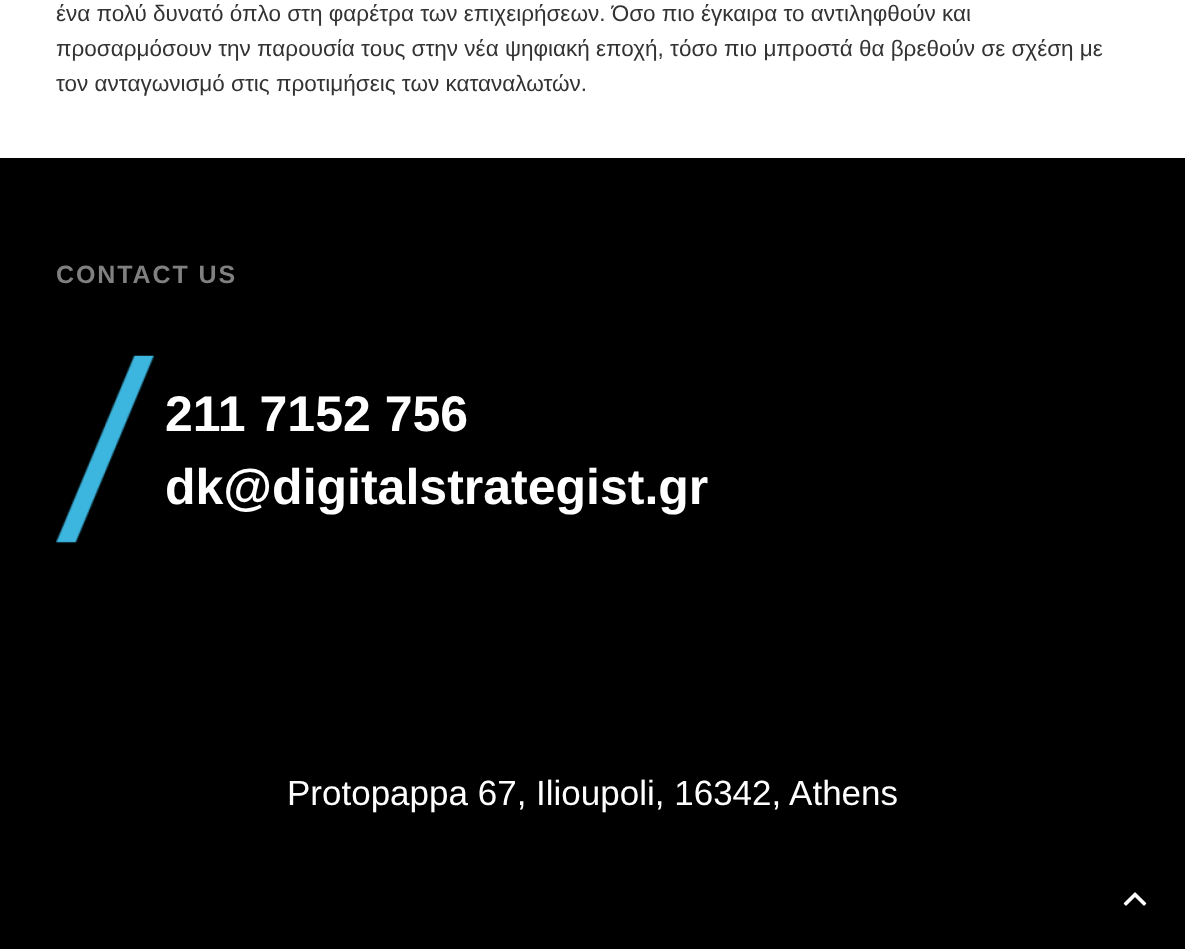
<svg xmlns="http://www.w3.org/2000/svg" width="1185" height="949">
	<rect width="100%" height="100%" fill="#FFFFFF" />
	<g font-family="Liberation Sans" font-size="22.5" fill="#333333">
		<text x="56" y="21">ένα πολύ δυνατό όπλο στη φαρέτρα των επιχειρήσεων. Όσο πιο έγκαιρα το αντιληφθούν και</text>
		<text x="56" y="56">προσαρμόσουν την παρουσία τους στην νέα ψηφιακή εποχή, τόσο πιο μπροστά θα βρεθούν σε σχέση με</text>
		<text x="56" y="91">τον ανταγωνισμό στις προτιμήσεις των καταναλωτών.</text>
	</g>
	<rect x="0" y="158" width="1185" height="791" fill="#000000" />
	<text x="56" y="283" font-family="Liberation Sans" font-size="25" font-weight="700" letter-spacing="1.9" fill="#808080">CONTACT US</text>
	<image x="56" y="355" width="98" height="189" href="assets/img1.png" />
	<g font-family="Liberation Sans" font-size="50" font-weight="700" fill="#FFFFFF">
		<text x="165" y="431">211 7152 756</text>
		<text x="165" y="504">dk@digitalstrategist.gr</text>
	</g>
	<text x="287" y="805" font-family="Liberation Sans" font-size="35" fill="#FFFFFF">Protopappa 67, Ilioupoli, 16342, Athens</text>
	<image x="1123" y="892" width="24" height="14" href="assets/img2.png" />
</svg>
